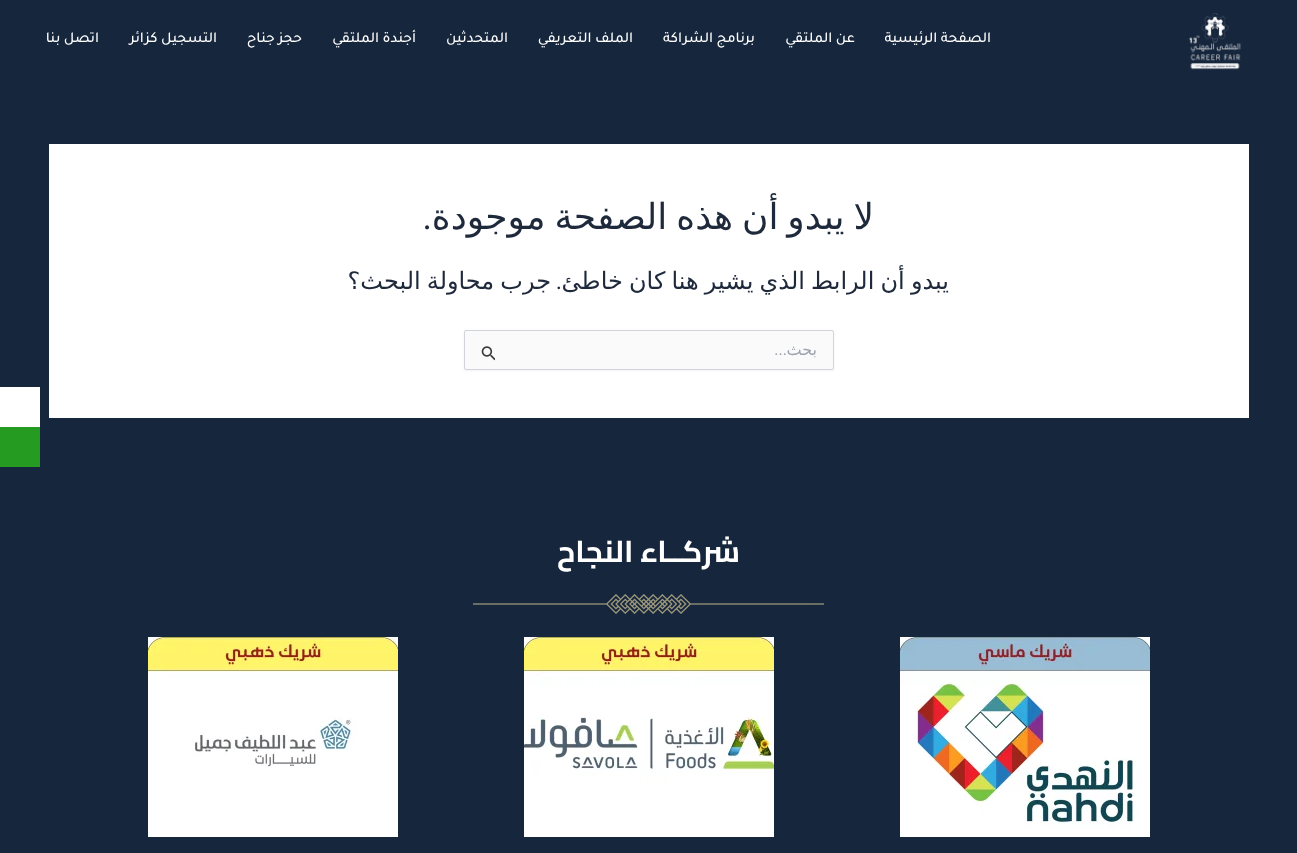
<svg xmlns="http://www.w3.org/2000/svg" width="1297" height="853">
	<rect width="100%" height="100%" fill="#16263D" />
	<image x="1189" y="13" width="52" height="57" href="assets/img1.png" />
	<g font-family="Tajawal" font-size="15" font-weight="500" direction="rtl" fill="#FFFFFF">
		<text x="991" y="42">الصفحة الرئيسية</text>
		<text x="855" y="42">عن الملتقي</text>
		<text x="755" y="42">برنامج الشراكة</text>
		<text x="633" y="42">الملف التعريفي</text>
		<text x="508" y="42">المتحدثين</text>
		<text x="416" y="42">أجندة الملتقي</text>
		<text x="302" y="42">حجز جناح</text>
		<text x="217" y="42">التسجيل كزائر</text>
		<text x="99" y="42">اتصل بنا</text>
	</g>
	<rect x="49" y="144" width="1200" height="274" fill="#FFFFFF" />
	<text x="874" y="229" word-spacing="-2.5" font-family="DejaVu Sans" font-size="36" direction="rtl" fill="#1E293B">لا يبدو أن هذه الصفحة موجودة</text>
	<text x="432" y="229" font-family="Roboto" font-size="36" direction="rtl" fill="#1E293B">.</text>
	<text x="949" y="289" word-spacing="-1.5" font-family="DejaVu Sans" font-size="24" direction="rtl" fill="#1E293B">يبدو أن الرابط الذي يشير هنا كان خاطئ</text>
	<text x="562" y="289" font-family="Roboto" font-size="24" direction="rtl" fill="#1E293B">.</text>
	<text x="551" y="289" word-spacing="-1.5" font-family="DejaVu Sans" font-size="24" direction="rtl" fill="#1E293B">جرب محاولة البحث؟</text>
	<rect x="464" y="331" width="370" height="40" rx="2" fill="#000000" fill-opacity="0.05" filter="blur(1px)" />
	<rect x="464.5" y="330.5" width="369" height="39" rx="1.5" fill="#FAFAFA" stroke="#D1D5DB" />
	<text x="817" y="355" font-family="DejaVu Sans" font-size="16" direction="rtl" fill="#9CA3AF">بحث</text>
	<text x="787" y="355" font-family="Roboto" font-size="16" direction="rtl" fill="#9CA3AF">...</text>
	<image x="481" y="346" width="14" height="15" href="assets/img2.png" />
	<text x="740" y="562" font-family="Cairo" font-size="30" font-weight="700" direction="rtl" fill="#FFFFFF">ﺷﺮﻛــﺎء اﻟﻨﺠﺎح</text>
	<image x="473" y="594" width="351" height="20" href="assets/img3.png" />
	<image x="900" y="637" width="250" height="200" href="assets/img4.png" />
	<image x="524" y="637" width="250" height="200" href="assets/img5.png" />
	<image x="148" y="637" width="250" height="200" href="assets/img6.png" />
	<rect x="0" y="387" width="40" height="40" fill="#FFFFFF" />
	<rect x="0" y="427" width="40" height="40" fill="#269B22" />
</svg>
